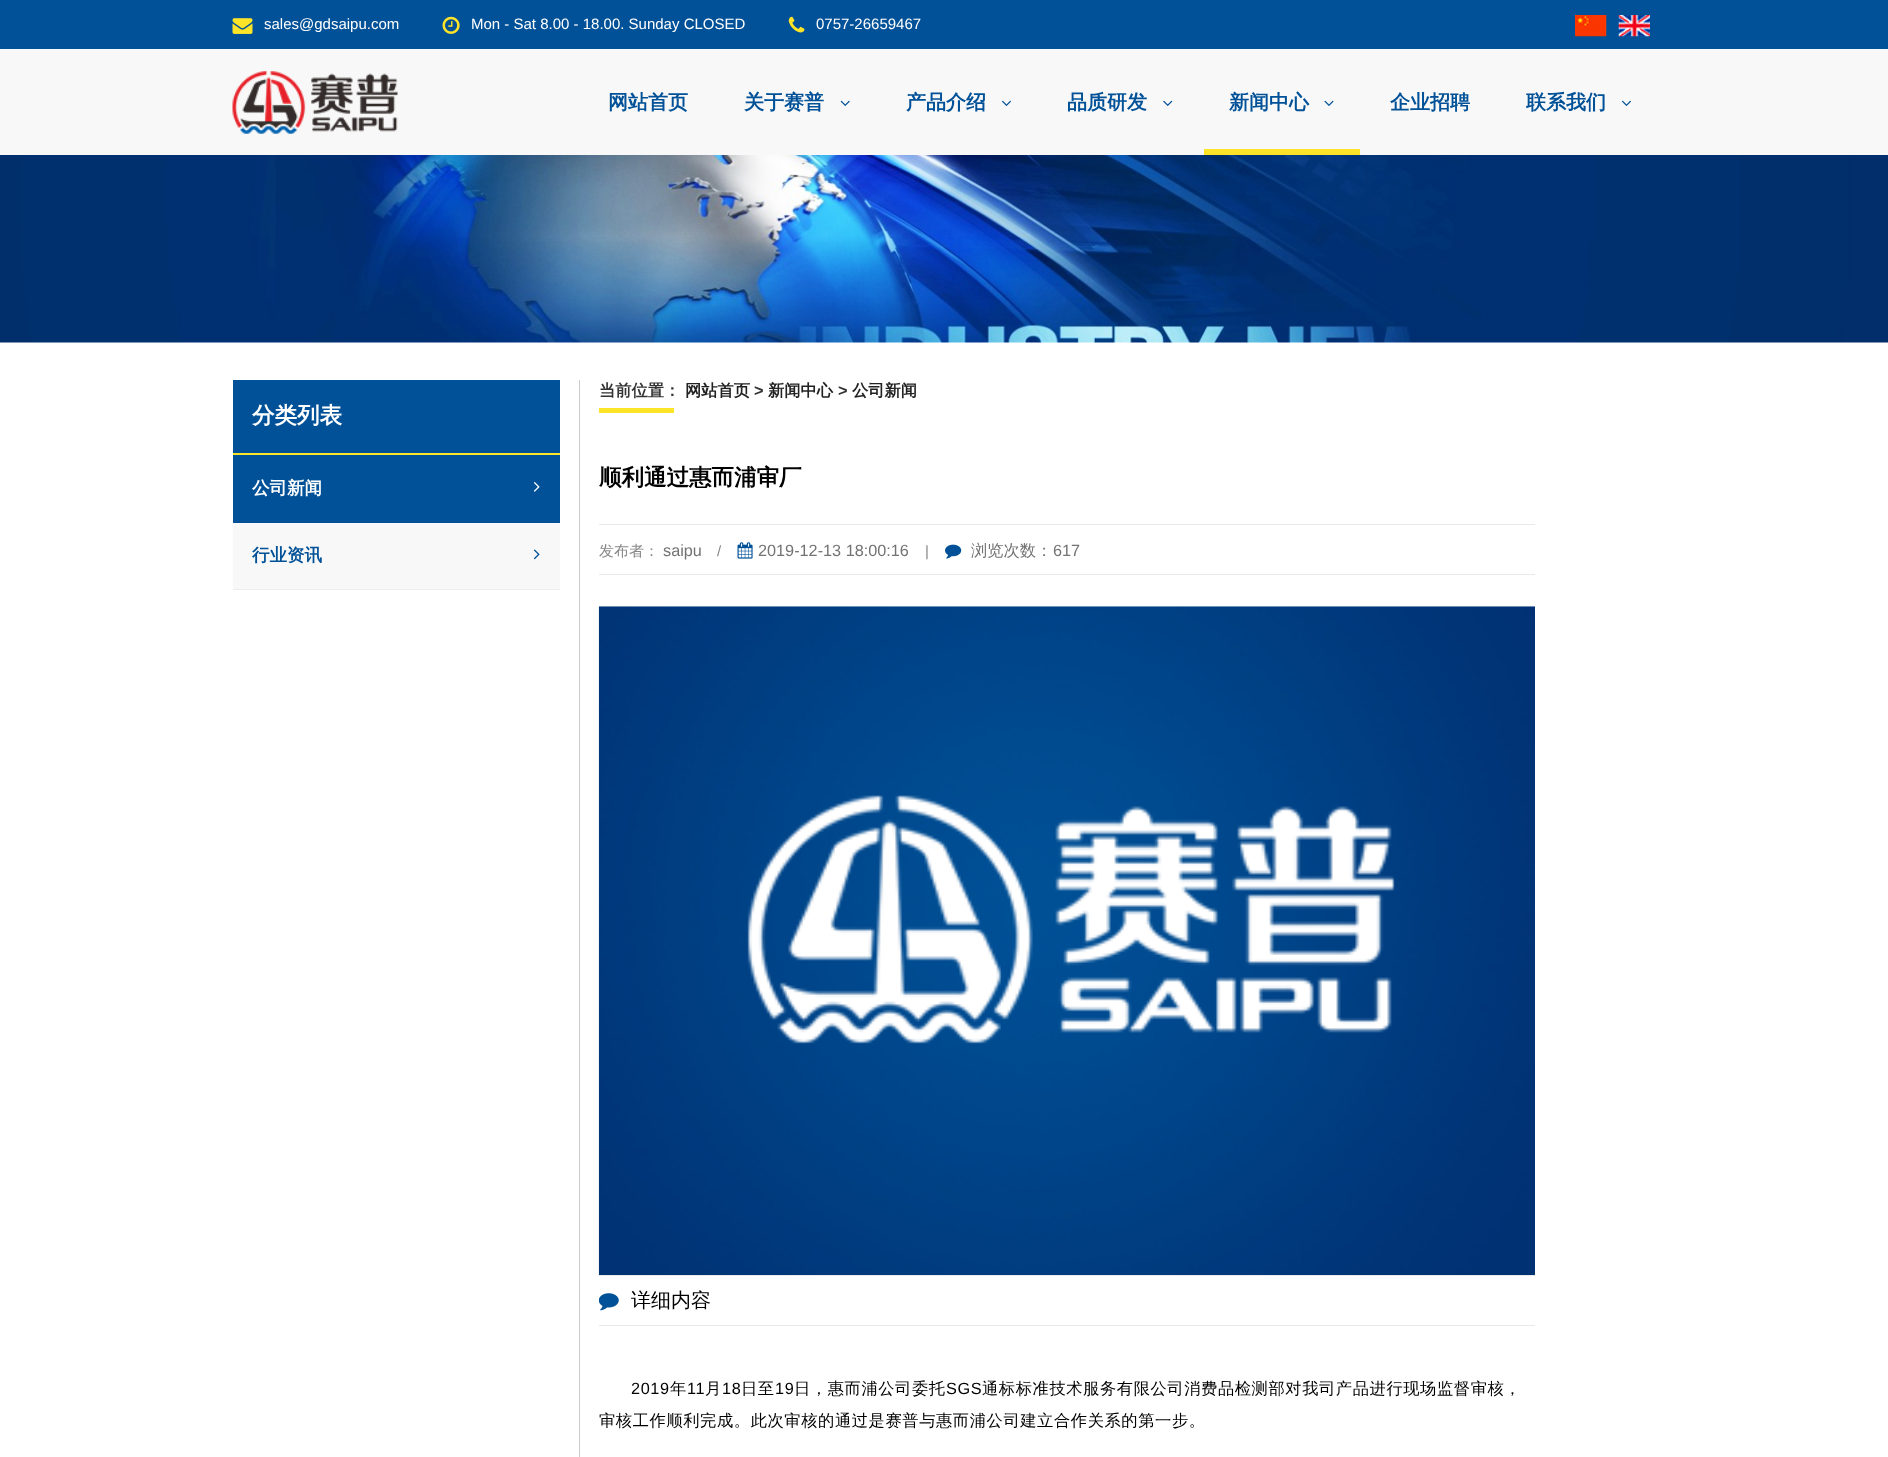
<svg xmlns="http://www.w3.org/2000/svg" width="1888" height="1457">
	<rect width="100%" height="100%" fill="#FFFFFF" />
	<rect x="0" y="0" width="1888" height="49" fill="#005197" />
	<image x="232" y="18" width="21" height="16" href="assets/img1.png" />
	<text x="264" y="29" font-family="Liberation Sans" font-size="15" fill="#FFFFFF">sales@gdsaipu.com</text>
	<image x="442" y="16" width="18" height="18" href="assets/img2.png" />
	<text x="471" y="29" font-family="Liberation Sans" font-size="15" fill="#FFFFFF">Mon - Sat 8.00 - 18.00. Sunday CLOSED</text>
	<image x="788" y="16" width="17" height="17" href="assets/img3.png" />
	<text x="816" y="29" font-family="Liberation Sans" font-size="15" fill="#FFFFFF">0757-26659467</text>
	<image x="1575" y="15" width="32" height="22" href="assets/img4.png" />
	<image x="1618" y="15" width="32" height="22" href="assets/img5.png" />
	<rect x="0" y="49" width="1888" height="106" fill="#F8F8F8" />
	<image x="232" y="71" width="166" height="63" href="assets/img6.png" />
	<g font-family="WenQuanYi Zen Hei" font-size="20" font-weight="700" fill="#005197">
		<text x="608" y="109">网站首页</text>
		<text x="744" y="109">关于赛普</text>
	</g>
	<image x="840" y="100" width="10" height="6" href="assets/img7.png" />
	<text x="906" y="109" font-family="WenQuanYi Zen Hei" font-size="20" font-weight="700" fill="#005197">产品介绍</text>
	<image x="1002" y="100" width="9" height="6" href="assets/img8.png" />
	<text x="1067" y="109" font-family="WenQuanYi Zen Hei" font-size="20" font-weight="700" fill="#005197">品质研发</text>
	<image x="1163" y="100" width="10" height="6" href="assets/img9.png" />
	<text x="1229" y="109" font-family="WenQuanYi Zen Hei" font-size="20" font-weight="700" fill="#005197">新闻中心</text>
	<image x="1324" y="100" width="10" height="6" href="assets/img10.png" />
	<rect x="1204" y="149" width="156" height="6" fill="#FDE428" />
	<g font-family="WenQuanYi Zen Hei" font-size="20" font-weight="700" fill="#005197">
		<text x="1390" y="109">企业招聘</text>
		<text x="1526" y="109">联系我们</text>
	</g>
	<image x="1622" y="100" width="9" height="6" href="assets/img8.png" />
	<image x="0" y="155" width="1888" height="188" href="assets/img11.png" />
	<rect x="233" y="380" width="327" height="73" fill="#005197" />
	<rect x="233" y="453" width="327" height="2" fill="#FDE428" />
	<text x="252" y="423" font-family="WenQuanYi Zen Hei" font-size="22.5" font-weight="700" fill="#FFFFFF">分类列表</text>
	<rect x="233" y="455" width="327" height="68" fill="#005197" />
	<text x="252" y="494" font-family="WenQuanYi Zen Hei" font-size="17.5" font-weight="700" fill="#FFFFFF">公司新闻</text>
	<image x="533" y="482" width="7" height="10" href="assets/img12.png" />
	<rect x="233" y="523" width="327" height="66" fill="#F8F8F8" />
	<rect x="233" y="589" width="327" height="1" fill="#EEEEEE" />
	<text x="252" y="561" font-family="WenQuanYi Zen Hei" font-size="17.5" font-weight="700" fill="#005197">行业资讯</text>
	<image x="533" y="549" width="7" height="11" href="assets/img13.png" />
	<rect x="579" y="380" width="1" height="1077" fill="#CCCCCC" />
	<text x="599" y="396" font-family="WenQuanYi Zen Hei" font-size="16.25" font-weight="700" fill="#333333">当前位置：</text>
	<text x="685" y="396" font-family="WenQuanYi Zen Hei" font-size="16.25" font-weight="700" fill="#222222">网站首页</text>
	<text x="754" y="396" font-family="Liberation Sans" font-size="16.25" font-weight="700" fill="#333333">&gt;</text>
	<text x="768" y="396" font-family="WenQuanYi Zen Hei" font-size="16.25" font-weight="700" fill="#222222">新闻中心</text>
	<text x="838" y="396" font-family="Liberation Sans" font-size="16.25" font-weight="700" fill="#333333">&gt;</text>
	<text x="852" y="396" font-family="WenQuanYi Zen Hei" font-size="16.25" font-weight="700" fill="#222222">公司新闻</text>
	<rect x="599" y="408" width="75" height="5" fill="#FDE428" />
	<text x="599" y="485" font-family="WenQuanYi Zen Hei" font-size="22.5" font-weight="700" fill="#000000">顺利通过惠而浦审厂</text>
	<rect x="599" y="524" width="936" height="1" fill="#E9E9E9" />
	<rect x="599" y="574" width="936" height="1" fill="#E9E9E9" />
	<text x="599" y="556" font-family="WenQuanYi Zen Hei" font-size="15" font-weight="500" fill="#888888">发布者：</text>
	<text x="663" y="556" font-family="Liberation Sans" font-size="16.25" fill="#737373">saipu</text>
	<text x="717" y="556" font-family="Liberation Sans" font-size="15" fill="#888888">/</text>
	<image x="737" y="542" width="16" height="17" href="assets/img14.png" />
	<text x="758" y="556" font-family="Liberation Sans" font-size="16.25" fill="#737373">2019-12-13 18:00:16</text>
	<text x="925" y="556" font-family="Liberation Sans" font-size="15" fill="#888888">|</text>
	<image x="945" y="544" width="17" height="15" href="assets/img15.png" />
	<text x="971" y="556" font-family="WenQuanYi Zen Hei" font-size="16.25" font-weight="500" fill="#737373">浏览次数：</text>
	<text x="1053" y="556" font-family="Liberation Sans" font-size="16.25" fill="#737373">617</text>
	<image x="598" y="606" width="937" height="669" href="assets/img16.png" />
	<rect x="599" y="1275" width="936" height="1" fill="#E9E9E9" />
	<rect x="599" y="1325" width="936" height="1" fill="#E9E9E9" />
	<image x="599" y="1293" width="20" height="18" href="assets/img17.png" />
	<text x="631" y="1307" font-family="WenQuanYi Zen Hei" font-size="20" font-weight="500" fill="#000000">详细内容</text>
	<text x="631" y="1394" font-family="Liberation Sans" font-size="16.25" letter-spacing="0.6" fill="#000000">2019</text>
	<text x="670" y="1394" font-family="WenQuanYi Zen Hei" font-size="16.25" font-weight="500" letter-spacing="0.6" fill="#000000">年</text>
	<text x="687" y="1394" font-family="Liberation Sans" font-size="16.25" letter-spacing="0.6" fill="#000000">11</text>
	<text x="705" y="1394" font-family="WenQuanYi Zen Hei" font-size="16.25" font-weight="500" letter-spacing="0.6" fill="#000000">月</text>
	<text x="722" y="1394" font-family="Liberation Sans" font-size="16.25" letter-spacing="0.6" fill="#000000">18</text>
	<text x="741" y="1394" font-family="WenQuanYi Zen Hei" font-size="16.25" font-weight="500" letter-spacing="0.6" fill="#000000">日至</text>
	<text x="775" y="1394" font-family="Liberation Sans" font-size="16.25" letter-spacing="0.6" fill="#000000">19</text>
	<text x="794" y="1394" font-family="WenQuanYi Zen Hei" font-size="16.25" font-weight="500" letter-spacing="0.6" fill="#000000">日，惠而浦公司委托</text>
	<text x="946" y="1394" font-family="Liberation Sans" font-size="16.25" letter-spacing="0.6" fill="#000000">SGS</text>
	<g font-family="WenQuanYi Zen Hei" font-size="16.25" font-weight="500" letter-spacing="0.6" fill="#000000">
		<text x="982" y="1394">通标标准技术服务有限公司消费品检测部对我司产品进行现场监督审核，</text>
		<text x="599" y="1426">审核工作顺利完成。此次审核的通过是赛普与惠而浦公司建立合作关系的第一步。</text>
	</g>
</svg>
